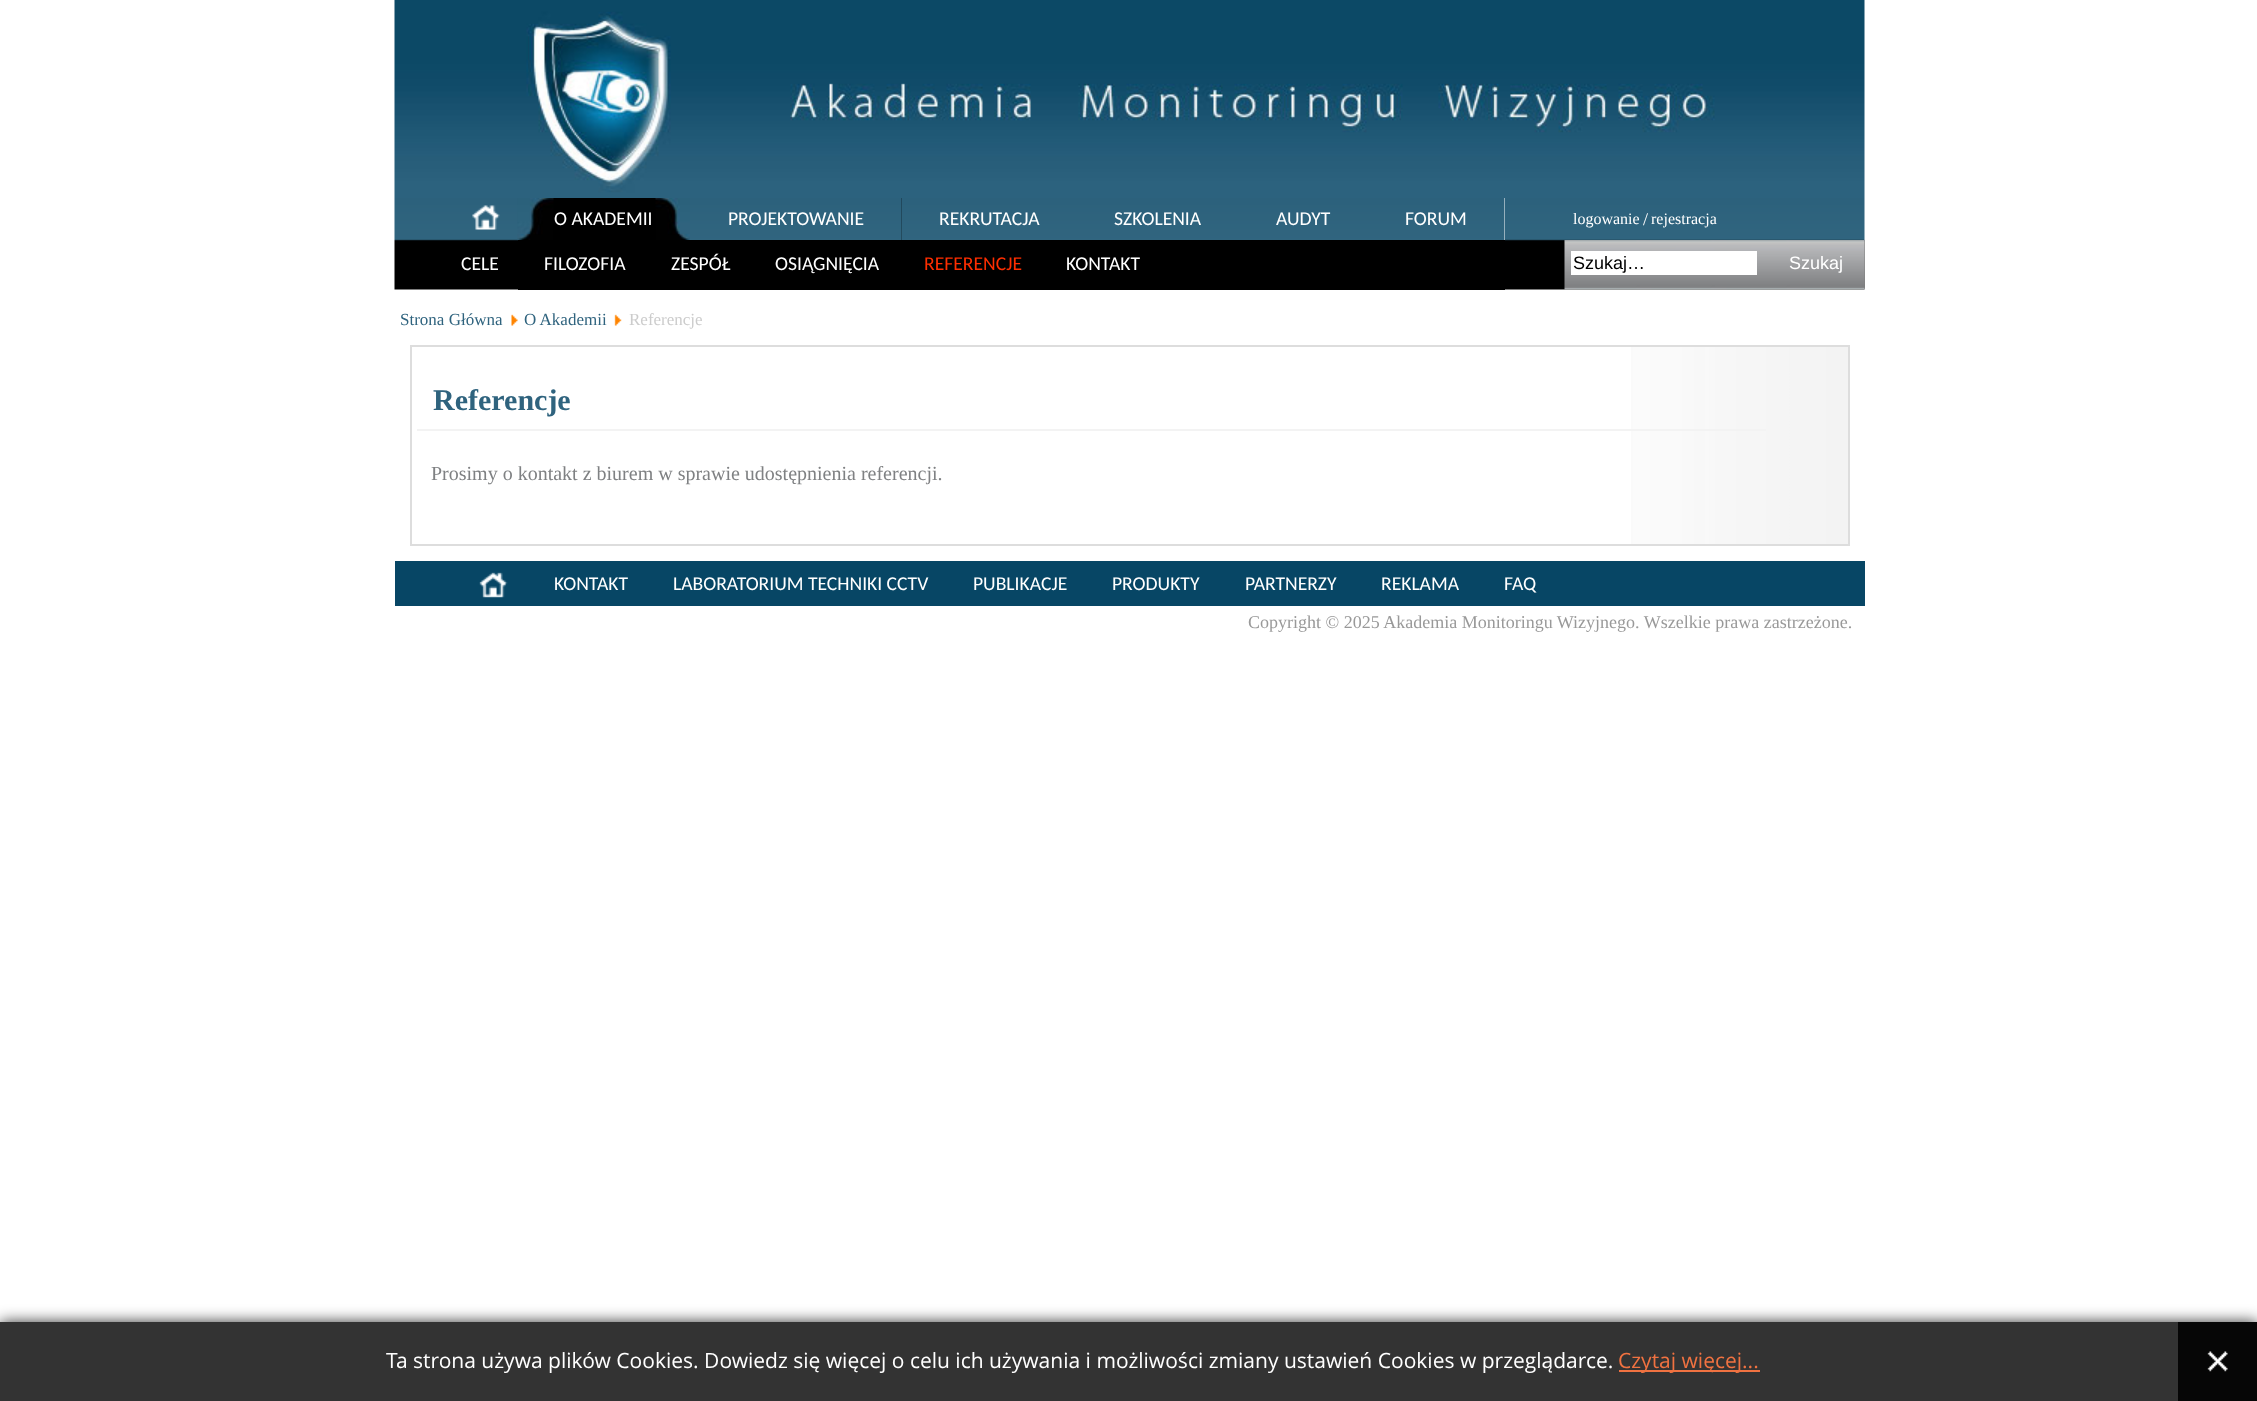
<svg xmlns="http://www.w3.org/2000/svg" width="2257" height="1401">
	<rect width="100%" height="100%" fill="#FFFFFF" />
	<image x="394" y="0" width="1471" height="198" href="assets/img1.png" />
	<image x="394" y="198" width="1471" height="92" href="assets/img2.png" />
	<image x="472" y="205" width="28" height="25" href="assets/img3.png" />
	<rect x="518" y="198" width="987" height="92" fill="#000000" />
	<image x="655" y="198" width="35" height="42" href="assets/img4.png" />
	<image x="517" y="198" width="37" height="42" href="assets/img5.png" />
	<g font-family="Carlito" font-size="19.6" fill="#FFFFFF">
		<text x="554" y="225">O AKADEMII</text>
		<text x="461" y="270">CELE</text>
		<text x="544" y="270">FILOZOFIA</text>
		<text x="671" y="270">ZESPÓŁ</text>
		<text x="775" y="270">OSIĄGNIĘCIA</text>
	</g>
	<text x="924" y="270" font-family="Carlito" font-size="19.6" fill="#FF2E00">REFERENCJE</text>
	<text x="1066" y="270" font-family="Carlito" font-size="19.6" fill="#FFFFFF">KONTAKT</text>
	<image x="690" y="198" width="212" height="42" href="assets/img6.png" />
	<text x="728" y="225" font-family="Carlito" font-size="19.6" fill="#FFFFFF">PROJEKTOWANIE</text>
	<image x="901" y="198" width="176" height="42" href="assets/img7.png" />
	<text x="939" y="225" font-family="Carlito" font-size="19.6" fill="#FFFFFF">REKRUTACJA</text>
	<image x="1077" y="198" width="162" height="42" href="assets/img8.png" />
	<text x="1114" y="225" font-family="Carlito" font-size="19.6" fill="#FFFFFF">SZKOLENIA</text>
	<image x="1239" y="198" width="129" height="42" href="assets/img9.png" />
	<text x="1276" y="225" font-family="Carlito" font-size="19.6" fill="#FFFFFF">AUDYT</text>
	<rect x="1504" y="198" width="1" height="42" fill="#FFFFFF" />
	<image x="1368" y="198" width="137" height="42" href="assets/img10.png" />
	<text x="1405" y="225" font-family="Carlito" font-size="19.6" fill="#FFFFFF">FORUM</text>
	<text x="1573" y="224" font-family="Liberation Serif" font-size="16" fill="#FFFFFF">logowanie</text>
	<text x="1643" y="225" font-family="Liberation Serif" font-size="18" fill="#FFFFFF">/</text>
	<text x="1651" y="224" font-family="Liberation Serif" font-size="16" fill="#FFFFFF">rejestracja</text>
	<image x="1564" y="240" width="301" height="50" href="assets/img11.png" />
	<rect x="1571" y="251" width="186" height="24" fill="#FFFFFF" />
	<text x="1573" y="269" font-family="Liberation Sans" font-size="18" fill="#000000">Szukaj…</text>
	<text x="1789" y="269" font-family="Liberation Sans" font-size="18" fill="#FFFFFF">Szukaj</text>
	<text x="400" y="325" font-family="Liberation Serif" font-size="17" fill="#2F637E">Strona Główna</text>
	<image x="511" y="314" width="7" height="12" href="assets/img12.png" />
	<text x="524" y="325" font-family="Liberation Serif" font-size="17" fill="#2F637E">O Akademii</text>
	<image x="614" y="314" width="8" height="12" href="assets/img13.png" />
	<text x="629" y="325" font-family="Liberation Serif" font-size="17" fill="#CCCCCC">Referencje</text>
	<image x="1631" y="347" width="217" height="197" href="assets/img14.png" />
	<rect x="411" y="346" width="1438" height="199" fill="none" stroke="#DDDDDD" stroke-width="2" />
	<rect x="417" y="429" width="1349" height="2" fill="#F3F3F3" />
	<text x="433" y="410" font-family="Liberation Serif" font-size="30" font-weight="700" fill="#2F637E">Referencje</text>
	<text x="431" y="480" font-family="Liberation Serif" font-size="20" fill="#7F8183">Prosimy o kontakt z biurem w sprawie udostępnienia referencji.</text>
	<rect x="395" y="561" width="1470" height="45" fill="#074665" />
	<image x="479" y="572" width="29" height="26" href="assets/img15.png" />
	<g font-family="Carlito" font-size="19.6" fill="#FFFFFF">
		<text x="554" y="590">KONTAKT</text>
		<text x="673" y="590">LABORATORIUM TECHNIKI CCTV</text>
		<text x="973" y="590">PUBLIKACJE</text>
		<text x="1112" y="590">PRODUKTY</text>
		<text x="1245" y="590">PARTNERZY</text>
		<text x="1381" y="590">REKLAMA</text>
		<text x="1504" y="590">FAQ</text>
	</g>
	<text x="1248" y="628" font-family="Liberation Serif" font-size="18" fill="#999999">Copyright © 2025 Akademia Monitoringu Wizyjnego. Wszelkie prawa zastrzeżone.</text>
	<rect x="0" y="1322" width="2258" height="79" fill="#000000" fill-opacity="0.8" filter="blur(7.5px)" />
	<rect x="0" y="1322" width="2178" height="79" fill="#333333" />
	<text x="386" y="1368" font-family="Open Sans" font-size="21" fill="#FFFFFF">Ta strona używa plików Cookies. Dowiedz się więcej o celu ich używania i możliwości zmiany ustawień Cookies w przeglądarce.</text>
	<rect x="1619" y="1370" width="141" height="2" fill="#F07241" />
	<text x="1618" y="1368" font-family="Open Sans" font-size="21" fill="#F07241">Czytaj więcej...</text>
	<rect x="2178" y="1322" width="79" height="79" fill="#060606" />
	<image x="2207" y="1351" width="21" height="21" href="assets/img16.png" />
</svg>
